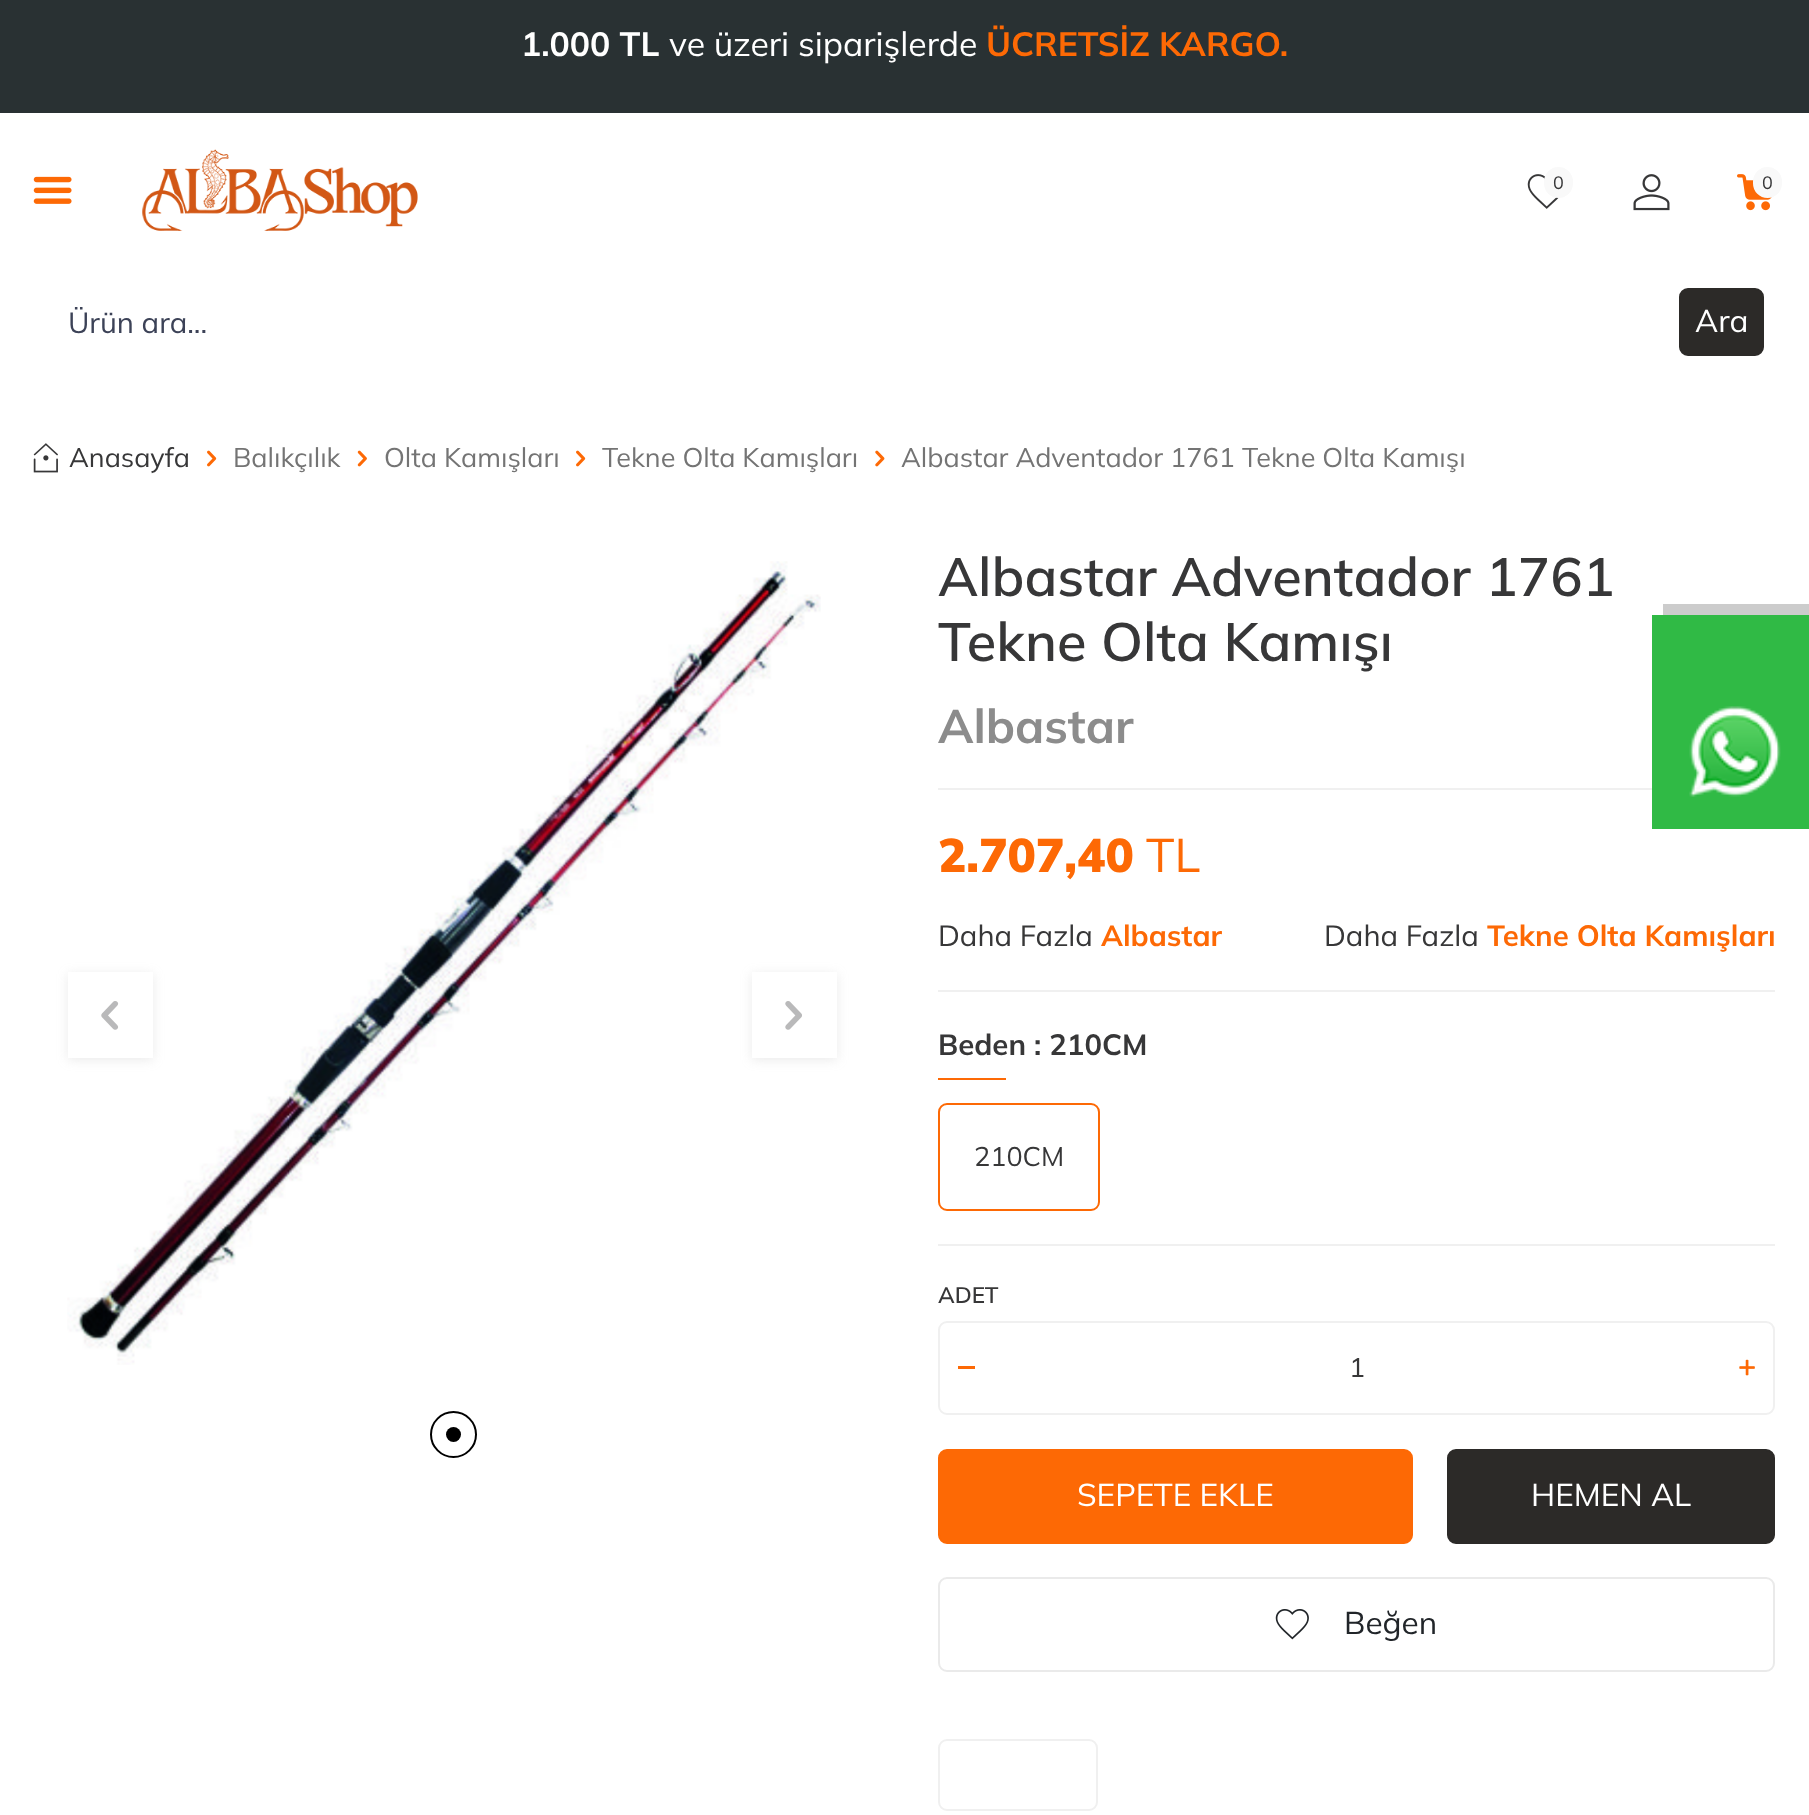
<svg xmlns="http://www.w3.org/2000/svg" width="1809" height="1815">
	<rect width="100%" height="100%" fill="#FFFFFF" />
	<rect x="0" y="0" width="1809" height="113" fill="#293133" />
	<text x="521" y="56" font-family="Mulish" font-size="33.75" font-weight="700" fill="#FFFFFF">1.000 TL</text>
	<text x="669" y="56" font-family="Mulish" font-size="33.75" fill="#FFFFFF">ve üzeri siparişlerde</text>
	<text x="986" y="56" font-family="Mulish" font-size="33.75" font-weight="700" fill="#FD6905">ÜCRETSİZ KARGO.</text>
	<image x="33" y="176" width="39" height="28" href="assets/img1.png" />
	<image x="142" y="149" width="276" height="82" href="assets/img2.png" />
	<image x="1527" y="174" width="33" height="35" href="assets/img3.png" />
	<rect x="1545" y="168" width="27" height="29" rx="13.5" fill="#F9F9F9" stroke="#F9F9F9" stroke-width="2" />
	<text x="1553" y="189" font-family="Mulish" font-size="18" fill="#373738">0</text>
	<image x="1633" y="174" width="37" height="37" href="assets/img4.png" />
	<image x="1737" y="174" width="35" height="37" href="assets/img5.png" />
	<rect x="1754" y="168" width="27" height="29" rx="13.5" fill="#F9F9F9" stroke="#F9F9F9" stroke-width="2" />
	<text x="1762" y="189" font-family="Mulish" font-size="18" fill="#373738">0</text>
	<text x="68" y="333" font-family="Mulish" font-size="29.25" fill="#3C4257">Ürün ara...</text>
	<rect x="1680" y="289" width="83" height="66" rx="8" fill="#2C2A28" stroke="#2C2A28" stroke-width="2" />
	<text x="1695" y="332" font-family="Mulish" font-size="31.5" fill="#FFFFFF">Ara</text>
	<image x="33" y="443" width="25" height="30" href="assets/img6.png" />
	<text x="69" y="467" font-family="Mulish" font-size="27" fill="#373738">Anasayfa</text>
	<image x="207" y="450" width="10" height="17" href="assets/img7.png" />
	<text x="233" y="467" font-family="Mulish" font-size="27" fill="#747474">Balıkçılık</text>
	<image x="357" y="450" width="10" height="17" href="assets/img8.png" />
	<text x="384" y="467" font-family="Mulish" font-size="27" fill="#747474">Olta Kamışları</text>
	<image x="576" y="450" width="10" height="17" href="assets/img7.png" />
	<text x="602" y="467" font-family="Mulish" font-size="27" fill="#747474">Tekne Olta Kamışları</text>
	<image x="875" y="450" width="10" height="17" href="assets/img9.png" />
	<text x="901" y="467" font-family="Mulish" font-size="27" fill="#747474">Albastar Adventador 1761 Tekne Olta Kamışı</text>
	<image x="67" y="561" width="754" height="804" href="assets/img10.png" />
	<rect x="68" y="974" width="85" height="86" fill="#A6A6A6" fill-opacity="0.24" filter="blur(5.5px)" />
	<rect x="68" y="972" width="85" height="86" fill="#FFFFFF" />
	<image x="101" y="1001" width="18" height="29" href="assets/img11.png" />
	<rect x="752" y="974" width="85" height="86" fill="#A6A6A6" fill-opacity="0.24" filter="blur(5.5px)" />
	<rect x="752" y="972" width="85" height="86" fill="#FFFFFF" />
	<image x="785" y="1001" width="17" height="29" href="assets/img12.png" />
	<circle cx="453.5" cy="1434.5" r="22.5" fill="none" stroke="#000000" stroke-width="2" />
	<circle cx="453.5" cy="1434.5" r="7.5" fill="#000000" />
	<g font-family="Mulish" font-size="54" font-weight="600" fill="#373738">
		<text x="938" y="596">Albastar Adventador 1761</text>
		<text x="938" y="661">Tekne Olta Kamışı</text>
	</g>
	<text x="938" y="743" font-family="Mulish" font-size="47.25" font-weight="700" fill="#8C8C8C">Albastar</text>
	<rect x="938" y="788" width="714" height="2" fill="#F0F0F0" />
	<rect x="938" y="990" width="837" height="2" fill="#F0F0F0" />
	<text x="938" y="872" font-family="Mulish" font-size="47.25" font-weight="900" fill="#FD6905">2.707,40</text>
	<text x="1146" y="872" font-family="Mulish" font-size="47.25" fill="#FD6905">TL</text>
	<text x="938" y="946" font-family="Mulish" font-size="29.25" fill="#373738">Daha Fazla</text>
	<text x="1101" y="946" font-family="Mulish" font-size="29.25" font-weight="700" fill="#FD6905">Albastar</text>
	<text x="1324" y="946" font-family="Mulish" font-size="29.25" fill="#373738">Daha Fazla</text>
	<text x="1487" y="946" font-family="Mulish" font-size="29.25" font-weight="700" fill="#FD6905">Tekne Olta Kamışları</text>
	<rect x="938" y="1244" width="837" height="2" fill="#F0F0F0" />
	<text x="938" y="1055" font-family="Mulish" font-size="29.25" font-weight="700" fill="#373738">Beden : 210CM</text>
	<rect x="938" y="1078" width="68" height="2" fill="#FD6905" />
	<rect x="939" y="1104" width="160" height="106" rx="8" fill="none" stroke="#FD6905" stroke-width="2" />
	<text x="974" y="1166" font-family="Mulish" font-size="27" fill="#373738">210CM</text>
	<text x="938" y="1303" font-family="Mulish" font-size="22.5" font-weight="600" fill="#373738">ADET</text>
	<rect x="939" y="1322" width="835" height="92" rx="8" fill="none" stroke="#F0F0F0" stroke-width="2" />
	<rect x="958" y="1366" width="17" height="3" fill="#FD6905" />
	<text x="1349" y="1377" font-family="Mulish" font-size="27" fill="#373738">1</text>
	<image x="1739" y="1359" width="16" height="17" href="assets/img13.png" />
	<rect x="939" y="1450" width="473" height="93" rx="8" fill="#FD6905" stroke="#FD6905" stroke-width="2" />
	<text x="1077" y="1506" font-family="Mulish" font-size="31.5" fill="#FFFFFF">SEPETE EKLE</text>
	<rect x="1448" y="1450" width="326" height="93" rx="8" fill="#2C2A28" stroke="#2C2A28" stroke-width="2" />
	<text x="1531" y="1506" font-family="Mulish" font-size="31.5" fill="#FFFFFF">HEMEN AL</text>
	<rect x="939" y="1578" width="835" height="93" rx="8" fill="none" stroke="#EAEAEA" stroke-width="2" />
	<image x="1275" y="1609" width="34" height="31" href="assets/img14.png" />
	<text x="1344" y="1634" font-family="Mulish" font-size="31.5" fill="#212529">Beğen</text>
	<rect x="939" y="1740" width="158" height="70" rx="8" fill="none" stroke="#F0F0F0" stroke-width="2" />
	<path d="M1663 604V615H1809V818H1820V604Z" fill="#CCCCCC" />
	<rect x="1652" y="615" width="157" height="214" fill="#30BA45" />
	<image x="1689" y="706" width="92" height="91" href="assets/img15.png" />
</svg>
